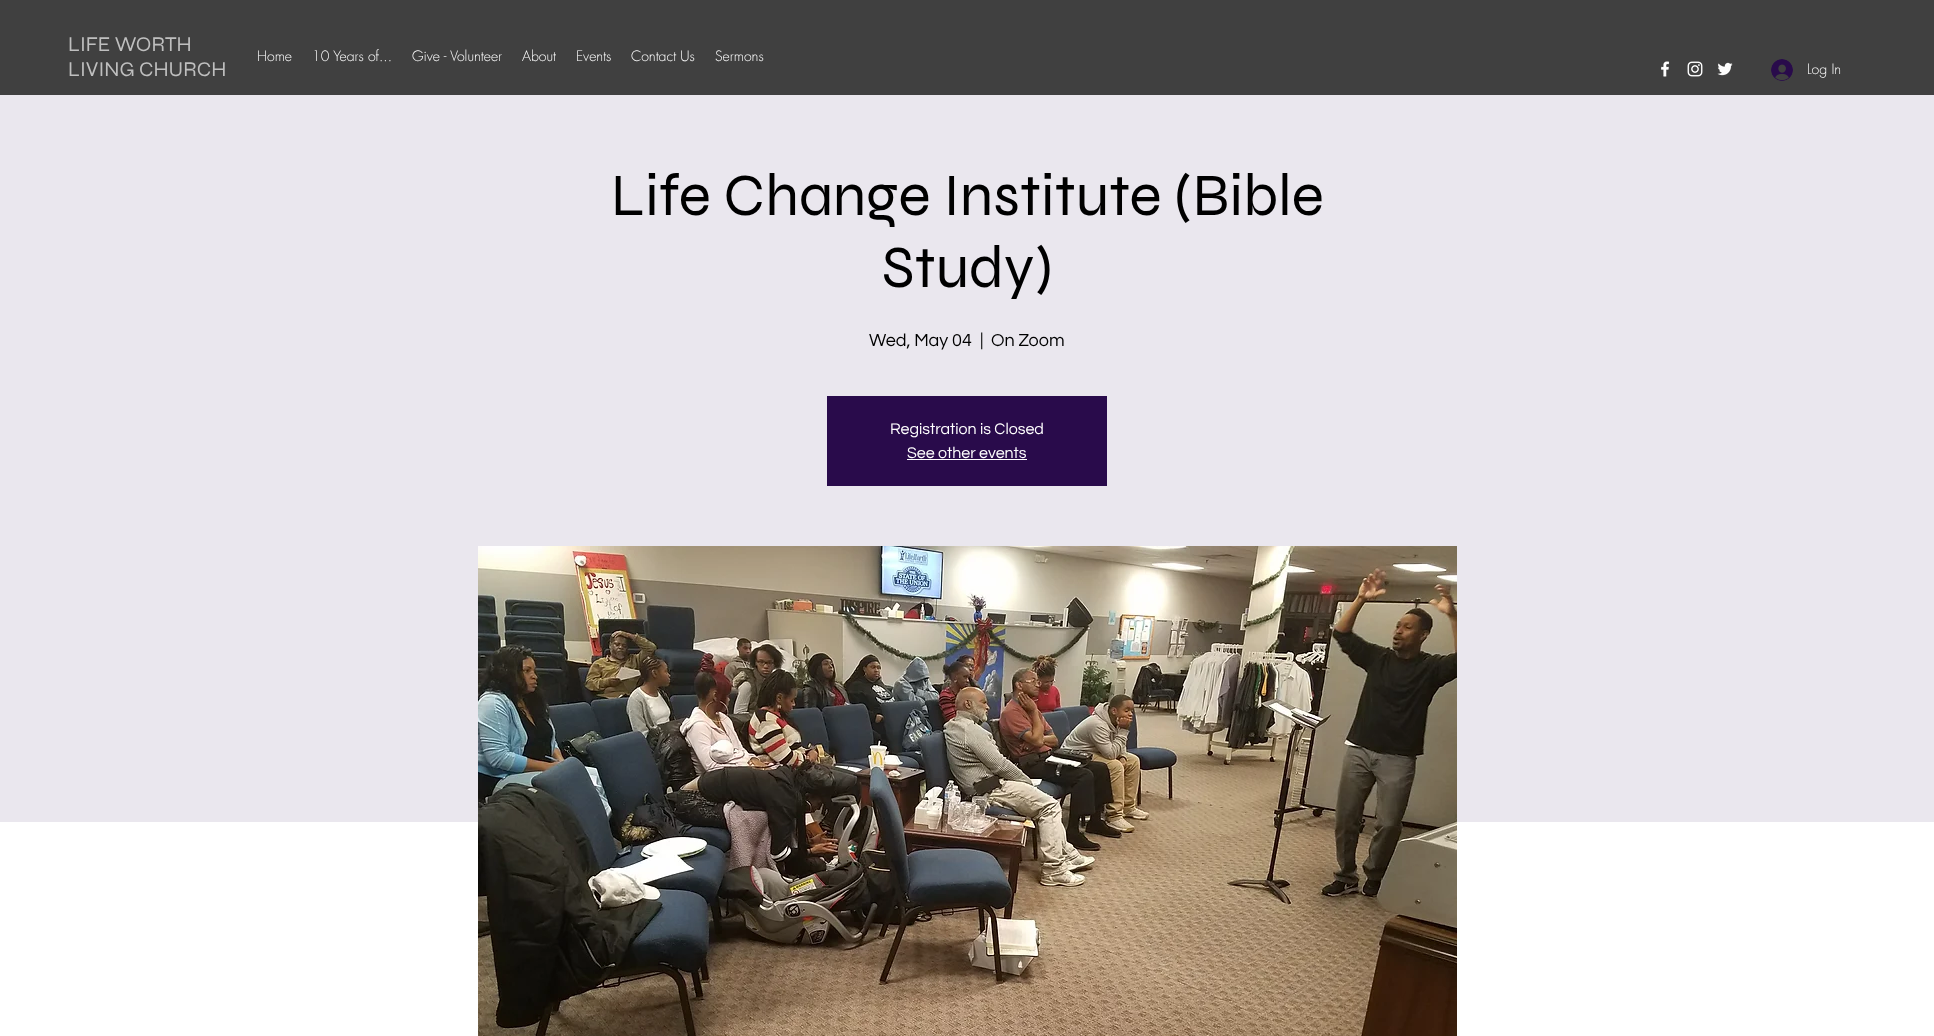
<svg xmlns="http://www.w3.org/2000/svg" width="1934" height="1036">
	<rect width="100%" height="100%" fill="#FFFFFF" />
	<rect x="0" y="0" width="1934" height="95" fill="#404040" />
	<g font-family="Syne" font-size="21" fill="#BFBFBF">
		<text x="68" y="51">LIFE WORTH</text>
		<text x="68" y="76">LIVING CHURCH</text>
	</g>
	<g font-family="futura" font-size="14" font-weight="300" fill="#FFFFFF">
		<text x="257" y="61">Home</text>
		<text x="312" y="61">10 Years of...</text>
		<text x="412" y="61">Give - Volunteer</text>
		<text x="522" y="61">About</text>
		<text x="576" y="61">Events</text>
		<text x="631" y="61">Contact Us</text>
		<text x="715" y="61">Sermons</text>
	</g>
	<image x="1661" y="61" width="9" height="16" href="assets/img1.png" />
	<image x="1687" y="61" width="16" height="16" href="assets/img2.png" />
	<image x="1717" y="62" width="16" height="14" href="assets/img3.png" />
	<image x="1771" y="59" width="22" height="22" href="assets/img4.png" />
	<text x="1807" y="74" font-family="futura" font-size="14" font-weight="300" fill="#FFFFFF">Log In</text>
	<rect x="0" y="95" width="1934" height="727" fill="#EAE7EE" />
	<g font-family="Syne" font-size="60" fill="#000000">
		<text x="611" y="215">Life Change Institute (Bible</text>
		<text x="882" y="287">Study)</text>
	</g>
	<g font-family="Questrial" font-size="18" fill="#000000">
		<text x="869" y="346">Wed, May 04</text>
		<text x="980" y="346">|</text>
		<text x="991" y="346">On Zoom</text>
	</g>
	<rect x="827" y="396" width="280" height="90" fill="#290B4B" />
	<g font-family="Questrial" font-size="16" fill="#FFFFFF">
		<text x="890" y="434">Registration is Closed</text>
		<text x="907" y="458">See other events</text>
	</g>
	<rect x="907" y="459" width="120" height="1" fill="#FFFFFF" />
	<image x="478" y="546" width="979" height="490" href="assets/img5.png" />
</svg>
